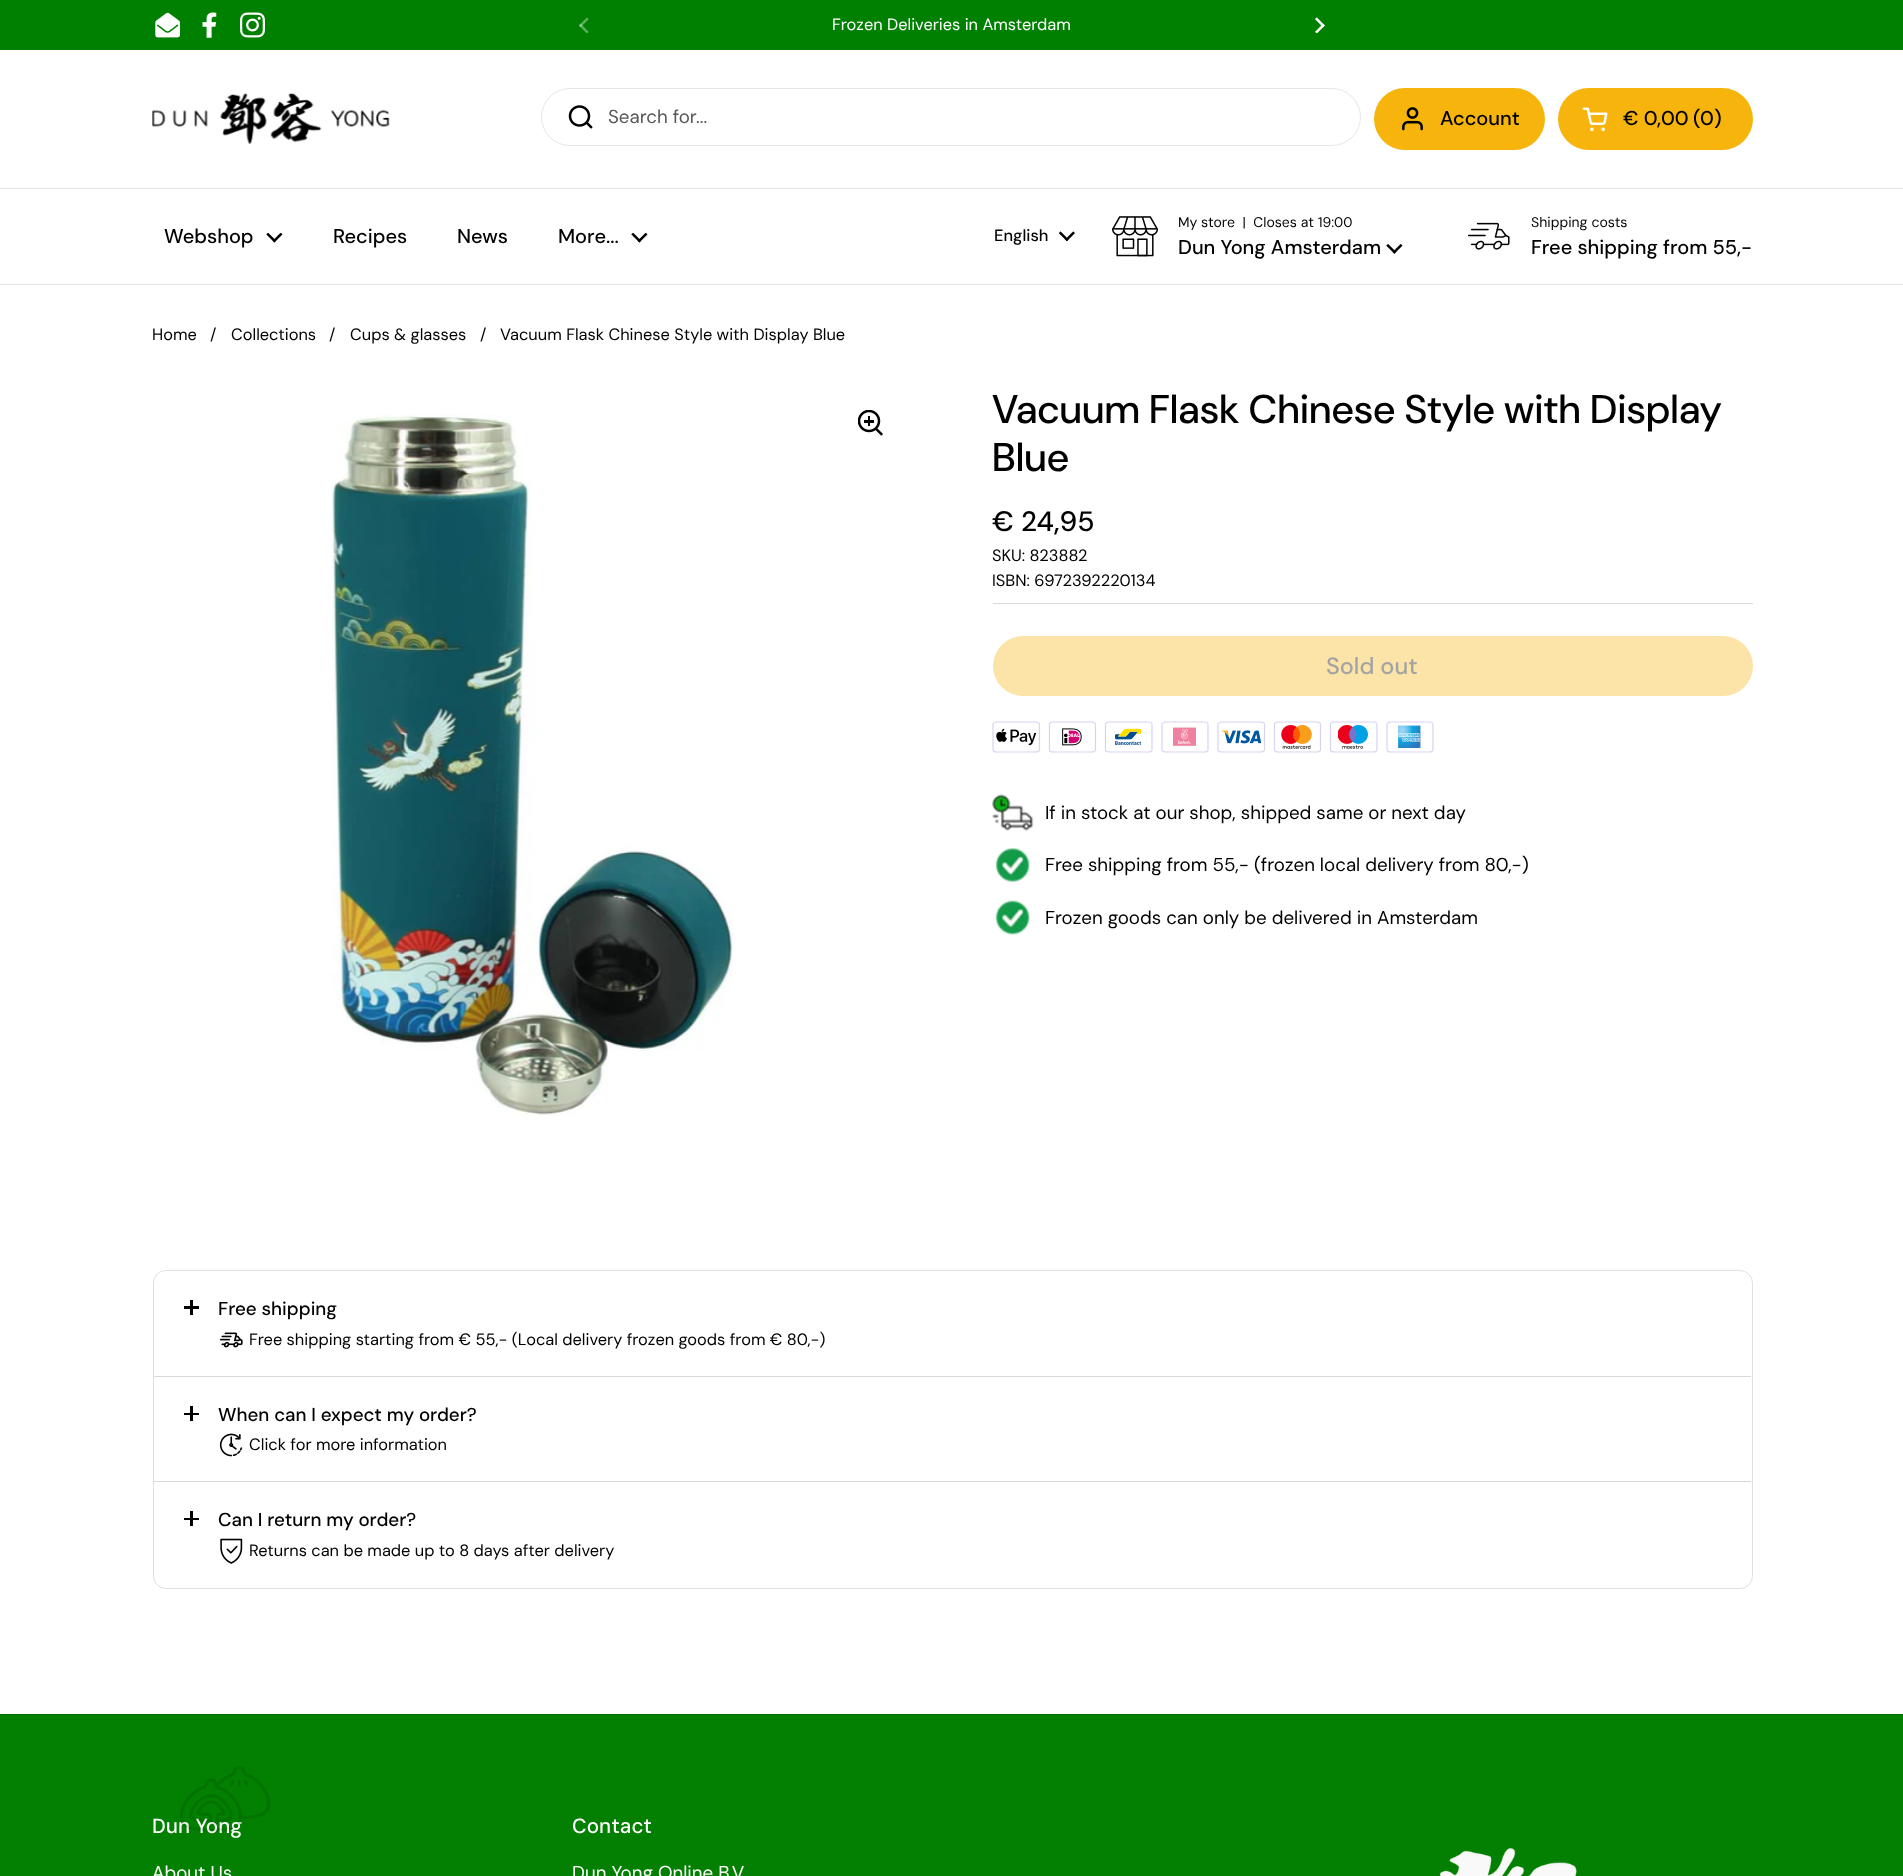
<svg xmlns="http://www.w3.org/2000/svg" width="1903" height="1876">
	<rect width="100%" height="100%" fill="#FFFFFF" />
	<rect x="0" y="0" width="1903" height="50" fill="#008001" />
	<image x="155" y="12" width="25" height="26" href="assets/img1.png" />
	<image x="202" y="12" width="15" height="26" href="assets/img2.png" />
	<image x="240" y="12" width="25" height="26" href="assets/img3.png" />
	<image x="579" y="17" width="10" height="16" href="assets/img4.png" />
	<text x="832" y="30" font-family="'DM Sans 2'" font-size="16.4" fill="#FFFFFF">Frozen Deliveries in Amsterdam</text>
	<image x="1315" y="17" width="10" height="17" href="assets/img5.png" />
	<rect x="0" y="188" width="1903" height="1" fill="#E6E6E6" />
	<image x="152" y="93" width="238" height="51" href="assets/img6.png" />
	<rect x="541.5" y="88.5" width="819" height="57" rx="28.5" fill="none" stroke="#E6E6E6" />
	<image x="568" y="105" width="25" height="24" href="assets/img7.png" />
	<text x="608" y="123" font-family="DM Sans" font-size="18.75" fill="#575757">Search for...</text>
	<rect x="1374" y="88" width="171" height="62" rx="31" fill="#F6B40D" />
	<image x="1402" y="107" width="21" height="24" href="assets/img8.png" />
	<text x="1440" y="125" font-family="'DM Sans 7'" font-size="20" font-weight="500" fill="#000000">Account</text>
	<rect x="1558" y="88" width="195" height="62" rx="31" fill="#F6B40D" />
	<image x="1582" y="107" width="26" height="25" href="assets/img9.png" />
	<g font-family="'DM Sans 7'" font-size="20" font-weight="500" fill="#000000">
		<text x="1623" y="125">€ 0,00</text>
		<text x="1693" y="125">(0</text>
		<text x="1714" y="125">)</text>
	</g>
	<rect x="0" y="284" width="1903" height="1" fill="#E6E6E6" />
	<text x="164" y="243" font-family="'DM Sans 7'" font-size="20" font-weight="500" fill="#000000">Webshop</text>
	<image x="266" y="233" width="17" height="10" href="assets/img10.png" />
	<g font-family="'DM Sans 7'" font-size="20" font-weight="500" fill="#000000">
		<text x="333" y="243">Recipes</text>
		<text x="457" y="243">News</text>
		<text x="558" y="243">More...</text>
	</g>
	<image x="631" y="233" width="17" height="10" href="assets/img10.png" />
	<text x="994" y="241" font-family="'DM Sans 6'" font-size="16.4" font-weight="500" fill="#000000">English</text>
	<image x="1059" y="231" width="16" height="10" href="assets/img11.png" />
	<image x="1112" y="216" width="46" height="41" href="assets/img12.png" />
	<text x="1178" y="227" font-family="'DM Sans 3'" font-size="14" fill="#000000" xml:space="preserve">My store  |  Closes at 19:00</text>
	<text x="1178" y="254" font-family="'DM Sans 7'" font-size="20" font-weight="500" fill="#000000">Dun Yong Amsterdam</text>
	<image x="1386" y="244" width="17" height="10" href="assets/img13.png" />
	<image x="1468" y="222" width="42" height="28" href="assets/img14.png" />
	<text x="1531" y="227" font-family="'DM Sans 3'" font-size="14" fill="#000000">Shipping costs</text>
	<text x="1531" y="254" font-family="'DM Sans 7'" font-size="20" font-weight="500" fill="#000000">Free shipping from 55,-</text>
	<g font-family="'DM Sans 2'" font-size="16.4" fill="#000000">
		<text x="152" y="340">Home</text>
		<text x="210" y="340">/</text>
		<text x="231" y="340">Collections</text>
		<text x="329" y="340">/</text>
		<text x="350" y="340">Cups &amp; glasses</text>
		<text x="480" y="340">/</text>
		<text x="500" y="340">Vacuum Flask Chinese Style with Display Blue</text>
	</g>
	<image x="331" y="414" width="402" height="702" href="assets/img15.png" />
	<image x="858" y="410" width="25" height="26" href="assets/img16.png" />
	<g font-family="'DM Sans 2'" font-size="40.1" font-weight="500" fill="#000000">
		<text x="992" y="423">Vacuum Flask Chinese Style with Display</text>
		<text x="992" y="471">Blue</text>
	</g>
	<text x="992" y="531" font-family="'DM Sans 3'" font-size="28" font-weight="500" fill="#000000">€ 24,95</text>
	<g font-family="'DM Sans 2'" font-size="16.4" fill="#000000">
		<text x="992" y="561">SKU: 823882</text>
		<text x="992" y="586">ISBN: 6972392220134</text>
	</g>
	<rect x="993" y="603" width="760" height="1" fill="#D9D9D9" />
	<rect x="993" y="636" width="760" height="60" rx="30" fill="#FCE4A8" />
	<text x="1326" y="674" font-family="'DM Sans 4'" font-size="23.5" font-weight="500" fill="#A3A3A3">Sold out</text>
	<path d="M997 722H1035C1037.5 722 1039.5 723 1039.5 724.5V749.5C1039.5 751 1037.5 752 1035 752H997C995 752 993 751 993 749.5V724.5C993 723 995 722 997 722Z" fill="none" stroke="#DAD2F1" stroke-width="1.2" />
	<image x="996" y="728" width="40" height="18" href="assets/img17.png" />
	<path d="M1053.5 722H1091.5C1094 722 1095.5 723 1095.5 724.5V749.5C1095.5 751 1094 752 1091.5 752H1053.5C1051 752 1049.5 751 1049.5 749.5V724.5C1049.5 723 1051 722 1053.5 722Z" fill="none" stroke="#DAD2F1" stroke-width="1.2" />
	<image x="1062" y="728" width="20" height="18" href="assets/img18.png" />
	<path d="M1110 722H1148C1150 722 1152 723 1152 724.5V749.5C1152 751 1150 752 1148 752H1110C1107.5 752 1105.5 751 1105.5 749.5V724.5C1105.5 723 1107.5 722 1110 722Z" fill="none" stroke="#DAD2F1" stroke-width="1.2" />
	<image x="1115" y="728" width="27" height="17" href="assets/img19.png" />
	<path d="M1166 722H1204C1206.5 722 1208 723 1208 724.5V749.5C1208 751 1206.5 752 1204 752H1166C1163.5 752 1162 751 1162 749.5V724.5C1162 723 1163.5 722 1166 722Z" fill="none" stroke="#DAD2F1" stroke-width="1.2" />
	<image x="1173" y="727" width="23" height="19" href="assets/img20.png" />
	<path d="M1222 722H1260C1262.5 722 1264.5 723 1264.5 724.5V749.5C1264.5 751 1262.5 752 1260 752H1222C1220 752 1218 751 1218 749.5V724.5C1218 723 1220 722 1222 722Z" fill="none" stroke="#DAD2F1" stroke-width="1.2" />
	<image x="1221" y="730" width="40" height="14" href="assets/img21.png" />
	<path d="M1278.5 722H1316.5C1319 722 1320.5 723 1320.5 724.5V749.5C1320.5 751 1319 752 1316.5 752H1278.5C1276 752 1274.5 751 1274.5 749.5V724.5C1274.5 723 1276 722 1278.5 722Z" fill="none" stroke="#DAD2F1" stroke-width="1.2" />
	<image x="1281" y="725" width="31" height="24" href="assets/img22.png" />
	<path d="M1335 722H1373C1375 722 1377 723 1377 724.5V749.5C1377 751 1375 752 1373 752H1335C1332.5 752 1330.5 751 1330.5 749.5V724.5C1330.5 723 1332.5 722 1335 722Z" fill="none" stroke="#DAD2F1" stroke-width="1.2" />
	<image x="1338" y="725" width="30" height="24" href="assets/img23.png" />
	<path d="M1391 722H1429C1431.5 722 1433 723 1433 724.5V749.5C1433 751 1431.5 752 1429 752H1391C1388.5 752 1387 751 1387 749.5V724.5C1387 723 1388.5 722 1391 722Z" fill="none" stroke="#DAD2F1" stroke-width="1.2" />
	<image x="1398" y="725" width="23" height="23" href="assets/img24.png" />
	<image x="992" y="794" width="42" height="37" href="assets/img25.png" />
	<text x="1045" y="819" font-family="DM Sans" font-size="18.75" fill="#000000">If in stock at our shop, shipped same or next day</text>
	<image x="995" y="848" width="35" height="34" href="assets/img26.png" />
	<text x="1045" y="871" font-family="DM Sans" font-size="18.75" fill="#000000">Free shipping from 55,- (frozen local delivery from 80,-)</text>
	<image x="995" y="900" width="35" height="35" href="assets/img27.png" />
	<text x="1045" y="924" font-family="DM Sans" font-size="18.75" fill="#000000">Frozen goods can only be delivered in Amsterdam</text>
	<rect x="153.5" y="1270.5" width="1599" height="318" rx="12.5" fill="none" stroke="#E1E1E1" />
	<rect x="190" y="1300" width="3" height="15" fill="#000000" />
	<rect x="184" y="1306" width="15" height="3" fill="#000000" />
	<text x="218" y="1315" font-family="'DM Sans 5'" font-size="18.75" font-weight="500" fill="#000000">Free shipping</text>
	<image x="219" y="1332" width="24" height="16" href="assets/img28.png" />
	<text x="249" y="1345" font-family="'DM Sans 2'" font-size="16.4" fill="#000000">Free shipping starting from € 55,- (Local delivery frozen goods from € 80,-)</text>
	<rect x="154" y="1376" width="1597" height="1" fill="#D9D9D9" />
	<rect x="190" y="1406" width="3" height="15" fill="#000000" />
	<rect x="184" y="1413" width="15" height="2" fill="#000000" />
	<text x="218" y="1421" font-family="'DM Sans 5'" font-size="18.75" font-weight="500" fill="#000000">When can I expect my order?</text>
	<image x="219" y="1433" width="24" height="24" href="assets/img29.png" />
	<text x="249" y="1450" font-family="'DM Sans 2'" font-size="16.4" fill="#000000">Click for more information</text>
	<rect x="154" y="1481" width="1597" height="1" fill="#D9D9D9" />
	<rect x="190" y="1511" width="3" height="15" fill="#000000" />
	<rect x="184" y="1518" width="15" height="2" fill="#000000" />
	<text x="218" y="1526" font-family="'DM Sans 5'" font-size="18.75" font-weight="500" fill="#000000">Can I return my order?</text>
	<image x="220" y="1538" width="23" height="26" href="assets/img30.png" />
	<text x="249" y="1556" font-family="'DM Sans 2'" font-size="16.4" fill="#000000">Returns can be made up to 8 days after delivery</text>
	<rect x="0" y="1715" width="1903" height="161" fill="#038002" />
	<rect x="0" y="1714" width="1903" height="1" fill="#036D02" />
	<text x="152" y="1833" font-family="DM Sans" font-size="20.5" font-weight="500" fill="#FFFFFF">Dun Yong</text>
	<image x="179" y="1766" width="92" height="66" href="assets/img31.png" />
	<text x="152" y="1879" font-family="DM Sans" font-size="18.75" fill="#FFFFFF">About Us</text>
	<text x="572" y="1833" font-family="DM Sans" font-size="20.5" font-weight="500" fill="#FFFFFF">Contact</text>
	<text x="572" y="1879" font-family="DM Sans" font-size="18.75" fill="#FFFFFF">Dun Yong Online B.V.</text>
	<image x="1439" y="1847" width="138" height="29" href="assets/img32.png" />
</svg>
